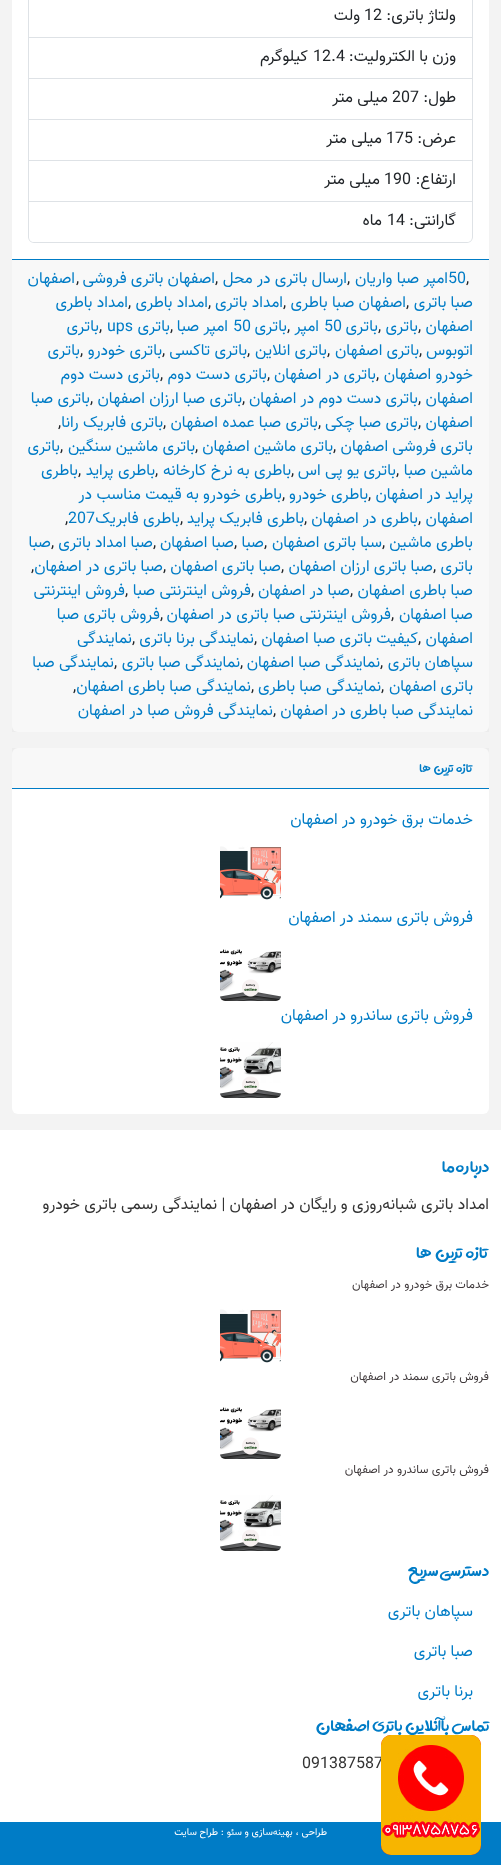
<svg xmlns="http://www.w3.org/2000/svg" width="501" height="1865">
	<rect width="100%" height="100%" fill="#F3F3F3" />
	<rect x="12" y="-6" width="477" height="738" rx="6" fill="#FFFFFF" />
	<rect x="472" y="0" width="1" height="202" fill="#DEE2E6" />
	<rect x="28" y="37" width="445" height="1" fill="#DEE2E6" />
	<rect x="28" y="0" width="1" height="38" fill="#DEE2E6" />
	<text x="456" y="20" font-family="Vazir" font-size="16" direction="rtl" fill="#212529">ولتاژ باتری:</text>
	<text x="364" y="20" font-family="Vazir" font-size="16" fill="#212529">12</text>
	<text x="360" y="20" font-family="Vazir" font-size="16" direction="rtl" fill="#212529">ولت</text>
	<rect x="28" y="78" width="445" height="1" fill="#DEE2E6" />
	<rect x="28" y="38" width="1" height="41" fill="#DEE2E6" />
	<text x="456" y="61" font-family="Vazir" font-size="16" direction="rtl" fill="#212529">وزن با الکترولیت:</text>
	<text x="313" y="61" font-family="Vazir" font-size="16" fill="#212529">12.4</text>
	<text x="308" y="61" font-family="Vazir" font-size="16" direction="rtl" fill="#212529">کیلوگرم</text>
	<rect x="28" y="119" width="445" height="1" fill="#DEE2E6" />
	<rect x="28" y="79" width="1" height="41" fill="#DEE2E6" />
	<text x="456" y="102" font-family="Vazir" font-size="16" direction="rtl" fill="#212529">طول:</text>
	<text x="392" y="102" font-family="Vazir" font-size="16" fill="#212529">207</text>
	<text x="388" y="102" font-family="Vazir" font-size="16" direction="rtl" fill="#212529">میلی متر</text>
	<rect x="28" y="160" width="445" height="1" fill="#DEE2E6" />
	<rect x="28" y="120" width="1" height="41" fill="#DEE2E6" />
	<text x="456" y="143" font-family="Vazir" font-size="16" direction="rtl" fill="#212529">عرض:</text>
	<text x="386" y="143" font-family="Vazir" font-size="16" fill="#212529">175</text>
	<text x="382" y="143" font-family="Vazir" font-size="16" direction="rtl" fill="#212529">میلی متر</text>
	<rect x="28" y="201" width="445" height="1" fill="#DEE2E6" />
	<rect x="28" y="161" width="1" height="41" fill="#DEE2E6" />
	<text x="456" y="184" font-family="Vazir" font-size="16" direction="rtl" fill="#212529">ارتفاع:</text>
	<text x="384" y="184" font-family="Vazir" font-size="16" fill="#212529">190</text>
	<text x="380" y="184" font-family="Vazir" font-size="16" direction="rtl" fill="#212529">میلی متر</text>
	<path d="M28 202H473V237C473 240 470 243 467 243H34C31 243 28 240 28 237ZM29 202H472V237C472 240 470 242 467 242H34C31 242 29 240 29 237Z" fill="#DEE2E6" fill-rule="evenodd" />
	<text x="456" y="225" font-family="Vazir" font-size="16" direction="rtl" fill="#212529">گارانتی:</text>
	<text x="387" y="225" font-family="Vazir" font-size="16" fill="#212529">14</text>
	<text x="382" y="225" font-family="Vazir" font-size="16" direction="rtl" fill="#212529">ماه</text>
	<rect x="12" y="260" width="477" height="472" fill="#212529" fill-opacity="0.03" />
	<rect x="12" y="259" width="477" height="1" fill="#007CC6" />
	<text x="466" y="283" font-family="Vazir" font-size="16" fill="#212529">,</text>
	<text x="448" y="283" font-family="Vazir" font-size="16" fill="#007CC6">50</text>
	<text x="448" y="283" font-family="Vazir" font-size="16" direction="rtl" fill="#007CC6">امپر صبا واریان</text>
	<text x="347" y="283" font-family="Vazir" font-size="16" fill="#212529">,</text>
	<text x="347" y="283" font-family="Vazir" font-size="16" direction="rtl" fill="#007CC6">ارسال باتری در محل</text>
	<text x="215" y="283" font-family="Vazir" font-size="16" fill="#212529">,</text>
	<text x="215" y="283" font-family="Vazir" font-size="16" direction="rtl" fill="#007CC6">اصفهان باتری فروشی</text>
	<text x="76" y="283" font-family="Vazir" font-size="16" fill="#212529">,</text>
	<g font-family="Vazir" font-size="16" direction="rtl" fill="#007CC6">
		<text x="75" y="283">اصفهان</text>
		<text x="473" y="307">صبا باتری</text>
	</g>
	<text x="406" y="307" font-family="Vazir" font-size="16" fill="#212529">,</text>
	<text x="406" y="307" font-family="Vazir" font-size="16" direction="rtl" fill="#007CC6">اصفهان صبا باطری</text>
	<text x="283" y="307" font-family="Vazir" font-size="16" fill="#212529">,</text>
	<text x="283" y="307" font-family="Vazir" font-size="16" direction="rtl" fill="#007CC6">امداد باتری</text>
	<text x="208" y="307" font-family="Vazir" font-size="16" fill="#212529">,</text>
	<text x="208" y="307" font-family="Vazir" font-size="16" direction="rtl" fill="#007CC6">امداد باطری</text>
	<text x="128" y="307" font-family="Vazir" font-size="16" fill="#212529">,</text>
	<g font-family="Vazir" font-size="16" direction="rtl" fill="#007CC6">
		<text x="128" y="307">امداد باطری</text>
		<text x="473" y="331">اصفهان</text>
	</g>
	<text x="418" y="331" font-family="Vazir" font-size="16" fill="#212529">,</text>
	<text x="418" y="331" font-family="Vazir" font-size="16" direction="rtl" fill="#007CC6">باتری</text>
	<text x="378" y="331" font-family="Vazir" font-size="16" fill="#212529">,</text>
	<text x="378" y="331" font-family="Vazir" font-size="16" direction="rtl" fill="#007CC6">باتری</text>
	<text x="324" y="331" font-family="Vazir" font-size="16" fill="#007CC6">50</text>
	<text x="319" y="331" font-family="Vazir" font-size="16" direction="rtl" fill="#007CC6">امپر</text>
	<text x="287" y="331" font-family="Vazir" font-size="16" fill="#212529">,</text>
	<text x="287" y="331" font-family="Vazir" font-size="16" direction="rtl" fill="#007CC6">باتری</text>
	<text x="233" y="331" font-family="Vazir" font-size="16" fill="#007CC6">50</text>
	<text x="228" y="331" font-family="Vazir" font-size="16" direction="rtl" fill="#007CC6">امپر صبا</text>
	<text x="170" y="331" font-family="Vazir" font-size="16" fill="#212529">,</text>
	<text x="170" y="331" font-family="Vazir" font-size="16" direction="rtl" fill="#007CC6">باتری</text>
	<text x="107" y="331" font-family="Vazir" font-size="16" fill="#007CC6">ups</text>
	<text x="99" y="331" font-family="Vazir" font-size="16" fill="#212529">,</text>
	<g font-family="Vazir" font-size="16" direction="rtl" fill="#007CC6">
		<text x="99" y="331">باتری</text>
		<text x="473" y="355">اتوبوس</text>
	</g>
	<text x="419" y="355" font-family="Vazir" font-size="16" fill="#212529">,</text>
	<text x="419" y="355" font-family="Vazir" font-size="16" direction="rtl" fill="#007CC6">باتری اصفهان</text>
	<text x="327" y="355" font-family="Vazir" font-size="16" fill="#212529">,</text>
	<text x="327" y="355" font-family="Vazir" font-size="16" direction="rtl" fill="#007CC6">باتری انلاین</text>
	<text x="247" y="355" font-family="Vazir" font-size="16" fill="#212529">,</text>
	<text x="247" y="355" font-family="Vazir" font-size="16" direction="rtl" fill="#007CC6">باتری تاکسی</text>
	<text x="162" y="355" font-family="Vazir" font-size="16" fill="#212529">,</text>
	<text x="162" y="355" font-family="Vazir" font-size="16" direction="rtl" fill="#007CC6">باتری خودرو</text>
	<text x="80" y="355" font-family="Vazir" font-size="16" fill="#212529">,</text>
	<g font-family="Vazir" font-size="16" direction="rtl" fill="#007CC6">
		<text x="80" y="355">باتری</text>
		<text x="473" y="379">خودرو اصفهان</text>
	</g>
	<text x="376" y="379" font-family="Vazir" font-size="16" fill="#212529">,</text>
	<text x="376" y="379" font-family="Vazir" font-size="16" direction="rtl" fill="#007CC6">باتری در اصفهان</text>
	<text x="267" y="379" font-family="Vazir" font-size="16" fill="#212529">,</text>
	<text x="267" y="379" font-family="Vazir" font-size="16" direction="rtl" fill="#007CC6">باتری دست دوم</text>
	<text x="160" y="379" font-family="Vazir" font-size="16" fill="#212529">,</text>
	<g font-family="Vazir" font-size="16" direction="rtl" fill="#007CC6">
		<text x="160" y="379">باتری دست دوم</text>
		<text x="473" y="403">اصفهان</text>
	</g>
	<text x="418" y="403" font-family="Vazir" font-size="16" fill="#212529">,</text>
	<text x="418" y="403" font-family="Vazir" font-size="16" direction="rtl" fill="#007CC6">باتری دست دوم در اصفهان</text>
	<text x="242" y="403" font-family="Vazir" font-size="16" fill="#212529">,</text>
	<text x="242" y="403" font-family="Vazir" font-size="16" direction="rtl" fill="#007CC6">باتری صبا ارزان اصفهان</text>
	<text x="90" y="403" font-family="Vazir" font-size="16" fill="#212529">,</text>
	<g font-family="Vazir" font-size="16" direction="rtl" fill="#007CC6">
		<text x="90" y="403">باتری صبا</text>
		<text x="473" y="427">اصفهان</text>
	</g>
	<text x="418" y="427" font-family="Vazir" font-size="16" fill="#212529">,</text>
	<text x="418" y="427" font-family="Vazir" font-size="16" direction="rtl" fill="#007CC6">باتری صبا چکی</text>
	<text x="318" y="427" font-family="Vazir" font-size="16" fill="#212529">,</text>
	<text x="318" y="427" font-family="Vazir" font-size="16" direction="rtl" fill="#007CC6">باتری صبا عمده اصفهان</text>
	<text x="163" y="427" font-family="Vazir" font-size="16" fill="#212529">,</text>
	<text x="163" y="427" font-family="Vazir" font-size="16" direction="rtl" fill="#007CC6">باتری فابریک رانا</text>
	<text x="58" y="427" font-family="Vazir" font-size="16" fill="#212529">,</text>
	<text x="473" y="451" font-family="Vazir" font-size="16" direction="rtl" fill="#007CC6">باتری فروشی اصفهان</text>
	<text x="333" y="451" font-family="Vazir" font-size="16" fill="#212529">,</text>
	<text x="333" y="451" font-family="Vazir" font-size="16" direction="rtl" fill="#007CC6">باتری ماشین اصفهان</text>
	<text x="195" y="451" font-family="Vazir" font-size="16" fill="#212529">,</text>
	<text x="195" y="451" font-family="Vazir" font-size="16" direction="rtl" fill="#007CC6">باتری ماشین سنگین</text>
	<text x="60" y="451" font-family="Vazir" font-size="16" fill="#212529">,</text>
	<g font-family="Vazir" font-size="16" direction="rtl" fill="#007CC6">
		<text x="60" y="451">باتری</text>
		<text x="473" y="475">ماشین صبا</text>
	</g>
	<text x="396" y="475" font-family="Vazir" font-size="16" fill="#212529">,</text>
	<text x="396" y="475" font-family="Vazir" font-size="16" direction="rtl" fill="#007CC6">باتری یو پی اس</text>
	<text x="291" y="475" font-family="Vazir" font-size="16" fill="#212529">,</text>
	<text x="291" y="475" font-family="Vazir" font-size="16" direction="rtl" fill="#007CC6">باطری به نرخ کارخانه</text>
	<text x="155" y="475" font-family="Vazir" font-size="16" fill="#212529">,</text>
	<text x="155" y="475" font-family="Vazir" font-size="16" direction="rtl" fill="#007CC6">باطری پراید</text>
	<text x="78" y="475" font-family="Vazir" font-size="16" fill="#212529">,</text>
	<g font-family="Vazir" font-size="16" direction="rtl" fill="#007CC6">
		<text x="78" y="475">باطری</text>
		<text x="473" y="499">پراید در اصفهان</text>
	</g>
	<text x="368" y="499" font-family="Vazir" font-size="16" fill="#212529">,</text>
	<text x="368" y="499" font-family="Vazir" font-size="16" direction="rtl" fill="#007CC6">باطری خودرو</text>
	<text x="282" y="499" font-family="Vazir" font-size="16" fill="#212529">,</text>
	<g font-family="Vazir" font-size="16" direction="rtl" fill="#007CC6">
		<text x="282" y="499">باطری خودرو به قیمت مناسب در</text>
		<text x="473" y="523">اصفهان</text>
	</g>
	<text x="418" y="523" font-family="Vazir" font-size="16" fill="#212529">,</text>
	<text x="418" y="523" font-family="Vazir" font-size="16" direction="rtl" fill="#007CC6">باطری در اصفهان</text>
	<text x="304" y="523" font-family="Vazir" font-size="16" fill="#212529">,</text>
	<text x="304" y="523" font-family="Vazir" font-size="16" direction="rtl" fill="#007CC6">باطری فابریک پراید</text>
	<text x="180" y="523" font-family="Vazir" font-size="16" fill="#212529">,</text>
	<text x="180" y="523" font-family="Vazir" font-size="16" direction="rtl" fill="#007CC6">باطری فابریک</text>
	<text x="68" y="523" font-family="Vazir" font-size="16" fill="#007CC6">207</text>
	<text x="65" y="523" font-family="Vazir" font-size="16" fill="#212529">,</text>
	<text x="473" y="547" font-family="Vazir" font-size="16" direction="rtl" fill="#007CC6">باطری ماشین</text>
	<text x="382" y="547" font-family="Vazir" font-size="16" fill="#212529">,</text>
	<text x="382" y="547" font-family="Vazir" font-size="16" direction="rtl" fill="#007CC6">سبا باتری اصفهان</text>
	<text x="264" y="547" font-family="Vazir" font-size="16" fill="#212529">,</text>
	<text x="264" y="547" font-family="Vazir" font-size="16" direction="rtl" fill="#007CC6">صبا</text>
	<text x="234" y="547" font-family="Vazir" font-size="16" fill="#212529">,</text>
	<text x="234" y="547" font-family="Vazir" font-size="16" direction="rtl" fill="#007CC6">صبا اصفهان</text>
	<text x="153" y="547" font-family="Vazir" font-size="16" fill="#212529">,</text>
	<text x="153" y="547" font-family="Vazir" font-size="16" direction="rtl" fill="#007CC6">صبا امداد باتری</text>
	<text x="51" y="547" font-family="Vazir" font-size="16" fill="#212529">,</text>
	<g font-family="Vazir" font-size="16" direction="rtl" fill="#007CC6">
		<text x="51" y="547">صبا</text>
		<text x="473" y="571">باتری</text>
	</g>
	<text x="433" y="571" font-family="Vazir" font-size="16" fill="#212529">,</text>
	<text x="433" y="571" font-family="Vazir" font-size="16" direction="rtl" fill="#007CC6">صبا باتری ارزان اصفهان</text>
	<text x="281" y="571" font-family="Vazir" font-size="16" fill="#212529">,</text>
	<text x="281" y="571" font-family="Vazir" font-size="16" direction="rtl" fill="#007CC6">صبا باتری اصفهان</text>
	<text x="163" y="571" font-family="Vazir" font-size="16" fill="#212529">,</text>
	<text x="163" y="571" font-family="Vazir" font-size="16" direction="rtl" fill="#007CC6">صبا باتری در اصفهان</text>
	<text x="31" y="571" font-family="Vazir" font-size="16" fill="#212529">,</text>
	<text x="473" y="595" font-family="Vazir" font-size="16" direction="rtl" fill="#007CC6">صبا باطری اصفهان</text>
	<text x="350" y="595" font-family="Vazir" font-size="16" fill="#212529">,</text>
	<text x="350" y="595" font-family="Vazir" font-size="16" direction="rtl" fill="#007CC6">صبا در اصفهان</text>
	<text x="251" y="595" font-family="Vazir" font-size="16" fill="#212529">,</text>
	<text x="251" y="595" font-family="Vazir" font-size="16" direction="rtl" fill="#007CC6">فروش اینترنتی صبا</text>
	<text x="125" y="595" font-family="Vazir" font-size="16" fill="#212529">,</text>
	<g font-family="Vazir" font-size="16" direction="rtl" fill="#007CC6">
		<text x="125" y="595">فروش اینترنتی</text>
		<text x="473" y="619">صبا اصفهان</text>
	</g>
	<text x="391" y="619" font-family="Vazir" font-size="16" fill="#212529">,</text>
	<text x="391" y="619" font-family="Vazir" font-size="16" direction="rtl" fill="#007CC6">فروش اینترنتی صبا باتری در اصفهان</text>
	<text x="160" y="619" font-family="Vazir" font-size="16" fill="#212529">,</text>
	<g font-family="Vazir" font-size="16" direction="rtl" fill="#007CC6">
		<text x="160" y="619">فروش باتری صبا</text>
		<text x="473" y="643">اصفهان</text>
	</g>
	<text x="418" y="643" font-family="Vazir" font-size="16" fill="#212529">,</text>
	<text x="418" y="643" font-family="Vazir" font-size="16" direction="rtl" fill="#007CC6">کیفیت باتری صبا اصفهان</text>
	<text x="254" y="643" font-family="Vazir" font-size="16" fill="#212529">,</text>
	<text x="254" y="643" font-family="Vazir" font-size="16" direction="rtl" fill="#007CC6">نمایندگی برنا باتری</text>
	<text x="132" y="643" font-family="Vazir" font-size="16" fill="#212529">,</text>
	<g font-family="Vazir" font-size="16" direction="rtl" fill="#007CC6">
		<text x="132" y="643">نمایندگی</text>
		<text x="473" y="667">سپاهان باتری</text>
	</g>
	<text x="380" y="667" font-family="Vazir" font-size="16" fill="#212529">,</text>
	<text x="380" y="667" font-family="Vazir" font-size="16" direction="rtl" fill="#007CC6">نمایندگی صبا اصفهان</text>
	<text x="240" y="667" font-family="Vazir" font-size="16" fill="#212529">,</text>
	<text x="240" y="667" font-family="Vazir" font-size="16" direction="rtl" fill="#007CC6">نمایندگی صبا باتری</text>
	<text x="114" y="667" font-family="Vazir" font-size="16" fill="#212529">,</text>
	<g font-family="Vazir" font-size="16" direction="rtl" fill="#007CC6">
		<text x="114" y="667">نمایندگی صبا</text>
		<text x="473" y="691">باتری اصفهان</text>
	</g>
	<text x="381" y="691" font-family="Vazir" font-size="16" fill="#212529">,</text>
	<text x="381" y="691" font-family="Vazir" font-size="16" direction="rtl" fill="#007CC6">نمایندگی صبا باطری</text>
	<text x="251" y="691" font-family="Vazir" font-size="16" fill="#212529">,</text>
	<text x="251" y="691" font-family="Vazir" font-size="16" direction="rtl" fill="#007CC6">نمایندگی صبا باطری اصفهان</text>
	<text x="73" y="691" font-family="Vazir" font-size="16" fill="#212529">,</text>
	<text x="473" y="715" font-family="Vazir" font-size="16" direction="rtl" fill="#007CC6">نمایندگی صبا باطری در اصفهان</text>
	<text x="273" y="715" font-family="Vazir" font-size="16" fill="#212529">,</text>
	<text x="273" y="715" font-family="Vazir" font-size="16" direction="rtl" fill="#007CC6">نمایندگی فروش صبا در اصفهان</text>
	<rect x="12" y="748" width="477" height="366" rx="6" fill="#FFFFFF" />
	<rect x="12" y="748" width="477" height="40" fill="#212529" fill-opacity="0.03" />
	<rect x="12" y="788" width="477" height="1" fill="#007CC6" />
	<text x="473" y="772" word-spacing="1" font-family="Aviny" font-size="16" direction="rtl" fill="#007CC6">تازه ترین ها</text>
	<text x="473" y="824" font-family="Vazir" font-size="16" direction="rtl" fill="#007CC6">خدمات برق خودرو در اصفهان</text>
	<image x="220" y="846" width="61" height="54" href="assets/img1.png" />
	<text x="473" y="922" font-family="Vazir" font-size="16" direction="rtl" fill="#007CC6">فروش باتری سمند در اصفهان</text>
	<image x="220" y="949" width="61" height="52" href="assets/img2.png" />
	<text x="473" y="1020" font-family="Vazir" font-size="16" direction="rtl" fill="#007CC6">فروش باتری ساندرو در اصفهان</text>
	<image x="220" y="1042" width="61" height="56" href="assets/img3.png" />
	<rect x="0" y="1130" width="501" height="692" fill="#FFFFFF" />
	<text x="489" y="1172" word-spacing="-1" font-family="Aviny" font-size="22" direction="rtl" fill="#007CC6">درباره ما</text>
	<text x="489" y="1209" font-family="Vazir" font-size="16" direction="rtl" fill="#333333">امداد باتری شبانه‌روزی و رایگان در اصفهان | نمایندگی رسمی باتری خودرو</text>
	<text x="489" y="1258" word-spacing="1" font-family="Aviny" font-size="22" direction="rtl" fill="#007CC6">تازه ترین ها</text>
	<text x="489" y="1288" font-family="Vazir" font-size="12" direction="rtl" fill="#3F393B">خدمات برق خودرو در اصفهان</text>
	<image x="220" y="1309" width="61" height="54" href="assets/img1.png" />
	<text x="489" y="1380" font-family="Vazir" font-size="12" direction="rtl" fill="#3F393B">فروش باتری سمند در اصفهان</text>
	<image x="220" y="1407" width="61" height="52" href="assets/img2.png" />
	<text x="489" y="1473" font-family="Vazir" font-size="12" direction="rtl" fill="#3F393B">فروش باتری ساندرو در اصفهان</text>
	<image x="220" y="1495" width="61" height="56" href="assets/img3.png" />
	<text x="489" y="1576" word-spacing="-1" font-family="Aviny" font-size="22" direction="rtl" fill="#007CC6">دسترسی سریع</text>
	<g font-family="Vazir" font-size="16" direction="rtl" fill="#007CC6">
		<text x="473" y="1616">سپاهان باتری</text>
		<text x="473" y="1656">صبا باتری</text>
		<text x="473" y="1696">برنا باتری</text>
	</g>
	<text x="489" y="1731" word-spacing="0.5" font-family="Aviny" font-size="22" direction="rtl" fill="#007CC6">تماس با آنلاین باتری اصفهان</text>
	<text x="302" y="1768" font-family="Vazir" font-size="16" fill="#333333">091387587</text>
	<rect x="0" y="1822" width="501" height="43" fill="#007CC6" />
	<text x="327" y="1835" font-family="Vazir" font-size="10" direction="rtl" fill="#FFFFFF">طراحی ، بهینه‌سازی و سئو : طراح سایت</text>
	<rect x="381" y="1735" width="100" height="120" rx="10" fill="#FF0000" />
	<image x="381" y="1735" width="100" height="120" href="assets/img4.png" />
</svg>
